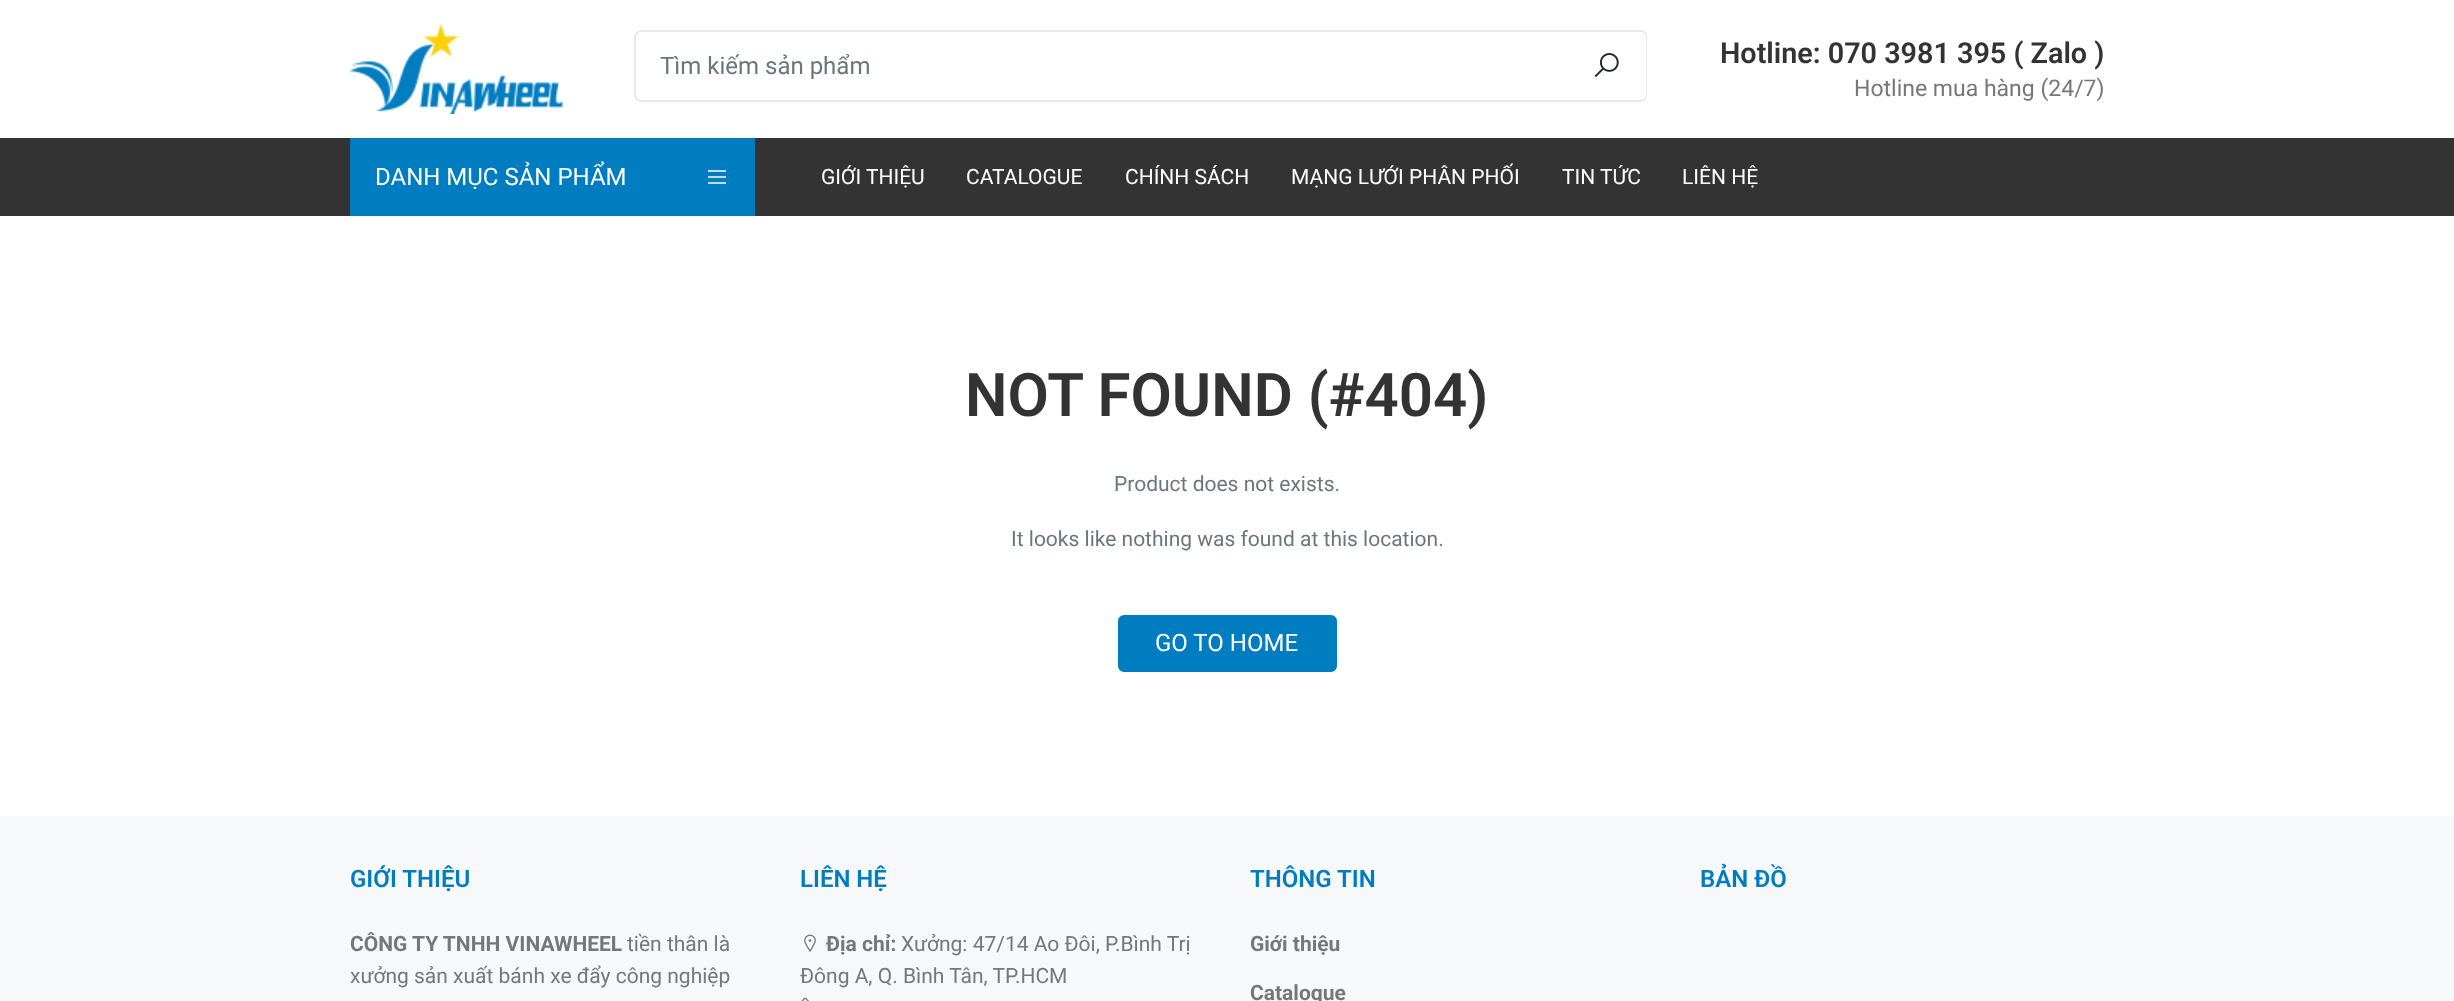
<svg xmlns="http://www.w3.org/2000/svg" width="2454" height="1001">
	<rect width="100%" height="100%" fill="#FFFFFF" />
	<image x="349" y="24" width="214" height="90" href="assets/img1.png" />
	<path d="M642 30H1569V102H642C638 102 634 99 634 95V37C634 33 638 30 642 30ZM642 32H1569V100H642C639 100 636 98 636 95V37C636 34 639 32 642 32Z" fill="#E9E7E7" fill-rule="evenodd" />
	<text x="660" y="74" font-family="Roboto" font-size="24" fill="#6C757D">Tìm kiếm sản phẩm</text>
	<path d="M1568 30H1640C1644 30 1647 33 1647 37V95C1647 99 1644 102 1640 102H1568ZM1568 32H1640C1643 32 1646 34 1646 37V95C1646 98 1643 100 1640 100H1568Z" fill="#E9E7E7" fill-rule="evenodd" />
	<image x="1594" y="53" width="25" height="25" href="assets/img2.png" />
	<text x="1720" y="63" font-family="Roboto" font-size="28.75" font-weight="600" fill="#333333">Hotline: 070 3981 395 ( Zalo )</text>
	<text x="1854" y="96" font-family="Roboto" font-size="23" fill="#777777">Hotline mua hàng (24/7)</text>
	<rect x="0" y="138" width="2454" height="78" fill="#333333" />
	<rect x="350" y="138" width="405" height="78" fill="#007DC0" />
	<text x="375" y="185" font-family="Roboto" font-size="24" fill="#FFFFFF">DANH MỤC SẢN PHẨM</text>
	<image x="708" y="170" width="18" height="14" href="assets/img3.png" />
	<g font-family="Roboto" font-size="21" fill="#FFFFFF">
		<text x="821" y="184">GIỚI THIỆU</text>
		<text x="966" y="184">CATALOGUE</text>
		<text x="1125" y="184">CHÍNH SÁCH</text>
		<text x="1291" y="184">MẠNG LƯỚI PHÂN PHỐI</text>
		<text x="1562" y="184">TIN TỨC</text>
		<text x="1682" y="184">LIÊN HỆ</text>
	</g>
	<text x="965" y="416" font-family="Roboto" font-size="60" font-weight="600" fill="#333333">NOT FOUND (#404)</text>
	<g font-family="Roboto" font-size="21" fill="#6C757D">
		<text x="1114" y="491">Product does not exists.</text>
		<text x="1011" y="546">It looks like nothing was found at this location.</text>
	</g>
	<rect x="1119" y="616" width="217" height="55" rx="5" fill="#007DC0" stroke="#007DC0" stroke-width="2" />
	<text x="1155" y="651" font-family="Roboto" font-size="24" fill="#FFFFFF">GO TO HOME</text>
	<rect x="0" y="816" width="2454" height="185" fill="#F7F8FA" />
	<text x="350" y="887" font-family="Roboto" font-size="24" font-weight="600" fill="#007DC0">GIỚI THIỆU</text>
	<text x="350" y="951" font-family="Roboto" font-size="21" font-weight="700" fill="#777777">CÔNG TY TNHH VINAWHEEL</text>
	<g font-family="Roboto" font-size="21" fill="#777777">
		<text x="627" y="951">tiền thân là</text>
		<text x="350" y="983">xưởng sản xuất bánh xe đẩy công nghiệp</text>
	</g>
	<text x="800" y="887" font-family="Roboto" font-size="24" font-weight="600" fill="#007DC0">LIÊN HỆ</text>
	<image x="804" y="934" width="12" height="18" href="assets/img4.png" />
	<text x="826" y="951" font-family="Roboto" font-size="21" font-weight="700" fill="#777777">Địa chỉ:</text>
	<g font-family="Roboto" font-size="21" fill="#777777">
		<text x="901" y="951">Xưởng: 47/14 Ao Đôi, P.Bình Trị</text>
		<text x="800" y="983">Đông A, Q. Bình Tân, TP.HCM</text>
	</g>
	<image x="801" y="997" width="8" height="4" href="assets/img5.png" />
	<text x="1250" y="887" font-family="Roboto" font-size="24" font-weight="600" fill="#007DC0">THÔNG TIN</text>
	<g font-family="Roboto" font-size="21" font-weight="700" fill="#777777">
		<text x="1250" y="951">Giới thiệu</text>
		<text x="1250" y="1000">Catalogue</text>
	</g>
	<text x="1700" y="887" font-family="Roboto" font-size="24" font-weight="600" fill="#007DC0">BẢN ĐỒ</text>
</svg>
